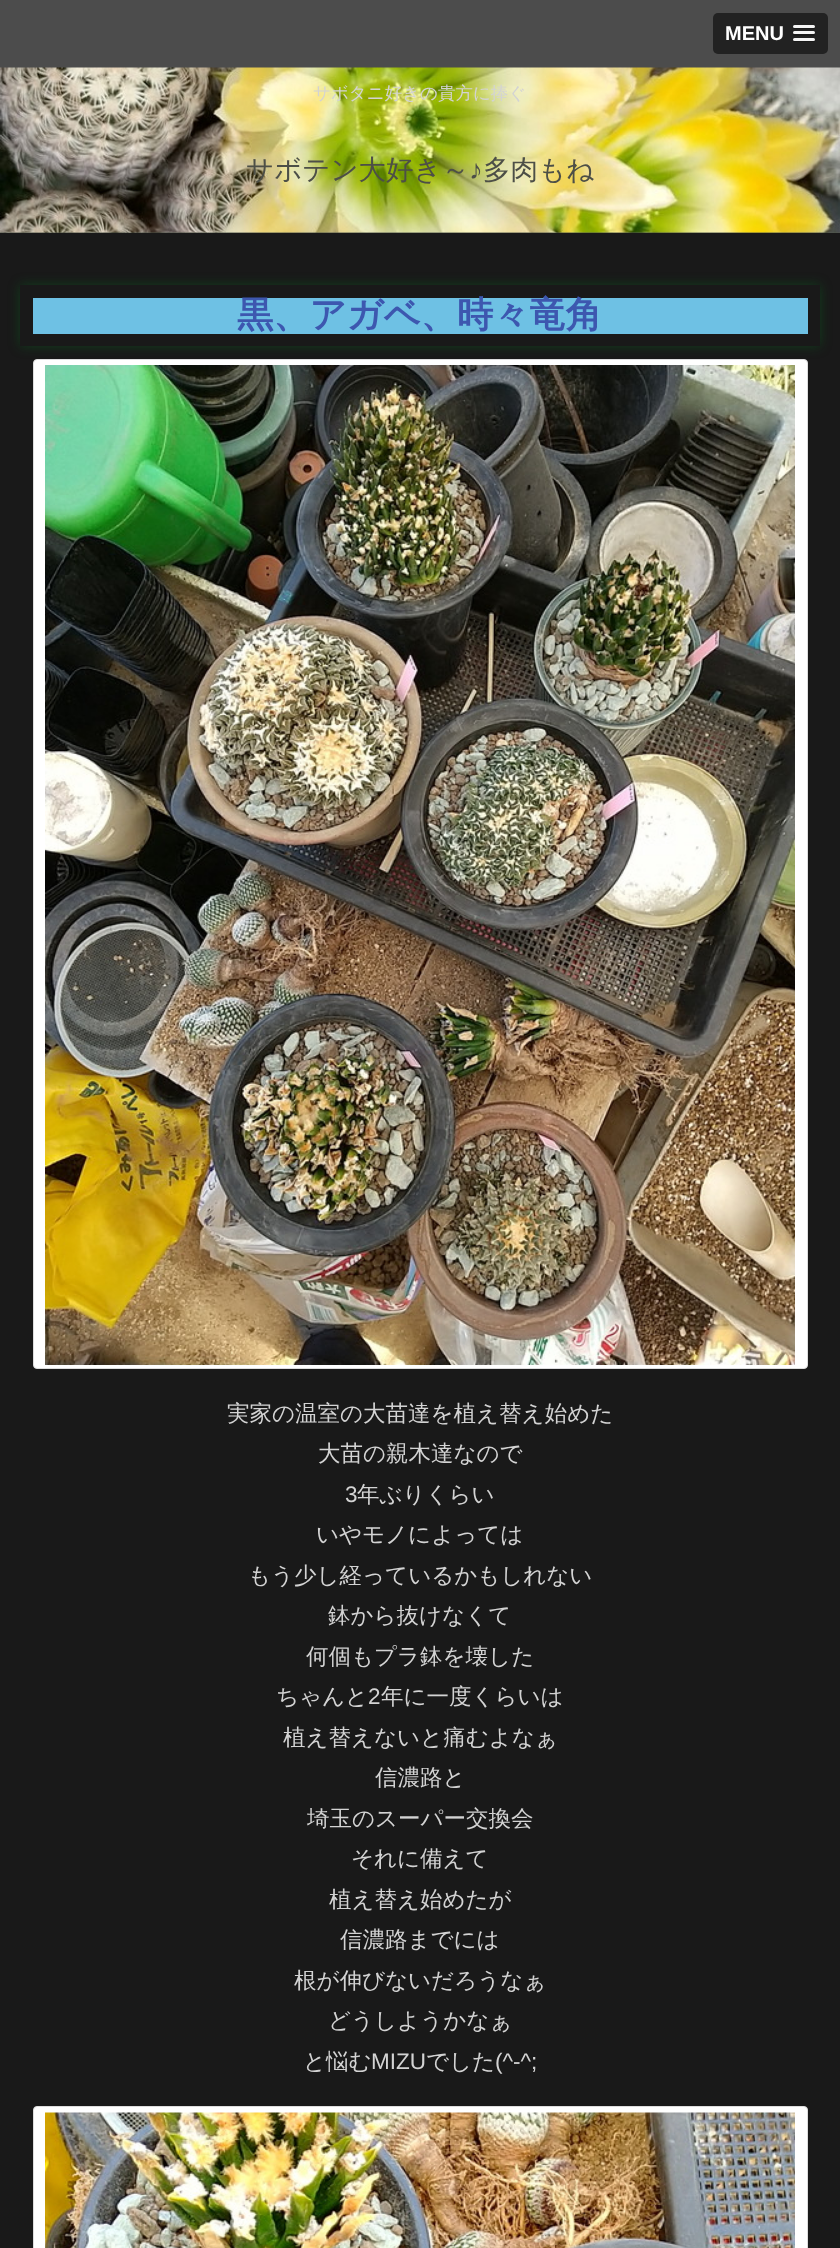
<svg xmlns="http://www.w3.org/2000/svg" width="840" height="2248">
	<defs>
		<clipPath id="clip1"><path d="M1 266H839V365H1ZM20 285H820V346H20Z" clip-rule="evenodd" /></clipPath>
	</defs>
	<rect width="100%" height="100%" fill="#191919" />
	<rect x="0" y="0" width="840" height="68" fill="#4C4C4C" />
	<rect x="713" y="13" width="115" height="41" rx="5" fill="#222222" />
	<text x="725" y="40" font-family="Liberation Sans" font-size="20" font-weight="700" fill="#FFFFFF">MENU</text>
	<path d="M793 27.5C792.5 29.5 796.5 29 797.5 29H810.5C811 29 816 29.5 815 27L814 27.5C812 27.5 793.5 27.5 793 27.5Z" fill="#1A1A1A" />
	<rect x="793" y="25" width="22" height="3" rx="1.5" fill="#F5F5F5" />
	<path d="M793.5 33.5C791.5 36.5 797 36 797.5 36H804C806 36 814 36.5 814.5 35.5C815 34.5 815 34 814.5 33.5C814 34 794.5 34 793.5 33.5Z" fill="#1A1A1A" />
	<rect x="793" y="31" width="22" height="3" rx="1.5" fill="#F5F5F5" />
	<path d="M793 40C792 42.5 797 42 797.5 42H810.5C810.5 42 817 42.5 814.5 39.5L814 40Z" fill="#1A1A1A" />
	<rect x="793" y="38" width="22" height="3" rx="1.5" fill="#F5F5F5" />
	<rect x="0" y="232" width="840" height="1" fill="#555B4E" />
	<image x="0" y="67" width="840" height="166" href="assets/img1.png" />
	<text x="313" y="99" font-family="WenQuanYi Zen Hei" font-size="17.5" font-weight="500" fill="#D3D3D3">サボタニ好きの貴方に捧ぐ</text>
	<text x="246" y="179" font-family="WenQuanYi Zen Hei" font-size="27.5" font-weight="500" fill="#4D4F47">サボテン大好き～</text>
	<text x="469" y="179" font-family="Liberation Sans" font-size="27.5" fill="#4D4F47">♪</text>
	<text x="483" y="179" font-family="WenQuanYi Zen Hei" font-size="27.5" font-weight="500" fill="#4D4F47">多肉もね</text>
	<g clip-path="url(#clip1)">
		<rect x="20" y="285" width="800" height="61" fill="#075E1E" fill-opacity="0.5" filter="blur(6px)" />
	</g>
	<rect x="33" y="298" width="775" height="36" fill="#6EC1E4" />
	<text x="237" y="327" font-family="WenQuanYi Zen Hei" font-size="36.25" font-weight="700" fill="#3D57AF">黒、アガベ、時々竜角</text>
	<rect x="33.5" y="359.5" width="774" height="1009" rx="3.5" fill="#FFFFFF" stroke="#DDDDDD" />
	<image x="45" y="365" width="750" height="1000" href="assets/img2.png" />
	<g font-family="WenQuanYi Zen Hei" font-size="22.5" font-weight="500" fill="#D3D3D3">
		<text x="227" y="1421">実家の温室の大苗達を植え替え始めた</text>
		<text x="318" y="1461">大苗の親木達なので</text>
	</g>
	<text x="345" y="1502" font-family="Liberation Sans" font-size="22.5" fill="#D3D3D3">3</text>
	<g font-family="WenQuanYi Zen Hei" font-size="22.5" font-weight="500" fill="#D3D3D3">
		<text x="357" y="1502">年ぶりくらい</text>
		<text x="316" y="1542">いやモノによっては</text>
		<text x="248" y="1583">もう少し経っているかもしれない</text>
		<text x="328" y="1623">鉢から抜けなくて</text>
		<text x="306" y="1664">何個もプラ鉢を壊した</text>
		<text x="276" y="1704">ちゃんと</text>
	</g>
	<text x="368" y="1704" font-family="Liberation Sans" font-size="22.5" fill="#D3D3D3">2</text>
	<g font-family="WenQuanYi Zen Hei" font-size="22.5" font-weight="500" fill="#D3D3D3">
		<text x="381" y="1704">年に一度くらいは</text>
		<text x="283" y="1745">植え替えないと痛むよなぁ</text>
		<text x="375" y="1785">信濃路と</text>
		<text x="307" y="1826">埼玉のスーパー交換会</text>
		<text x="351" y="1866">それに備えて</text>
		<text x="329" y="1907">植え替え始めたが</text>
		<text x="340" y="1947">信濃路までには</text>
		<text x="294" y="1988">根が伸びないだろうなぁ</text>
		<text x="328" y="2028">どうしようかなぁ</text>
		<text x="303" y="2069">と悩む</text>
	</g>
	<text x="371" y="2069" font-family="Liberation Sans" font-size="22.5" fill="#D3D3D3">MIZU</text>
	<text x="426" y="2069" font-family="WenQuanYi Zen Hei" font-size="22.5" font-weight="500" fill="#D3D3D3">でした</text>
	<text x="495" y="2069" font-family="Liberation Sans" font-size="22.5" fill="#D3D3D3">(^-^;</text>
	<rect x="33.5" y="2106.5" width="774" height="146" rx="3.5" fill="#FFFFFF" stroke="#DDDDDD" />
	<image x="45" y="2112" width="750" height="136" href="assets/img3.png" />
</svg>
